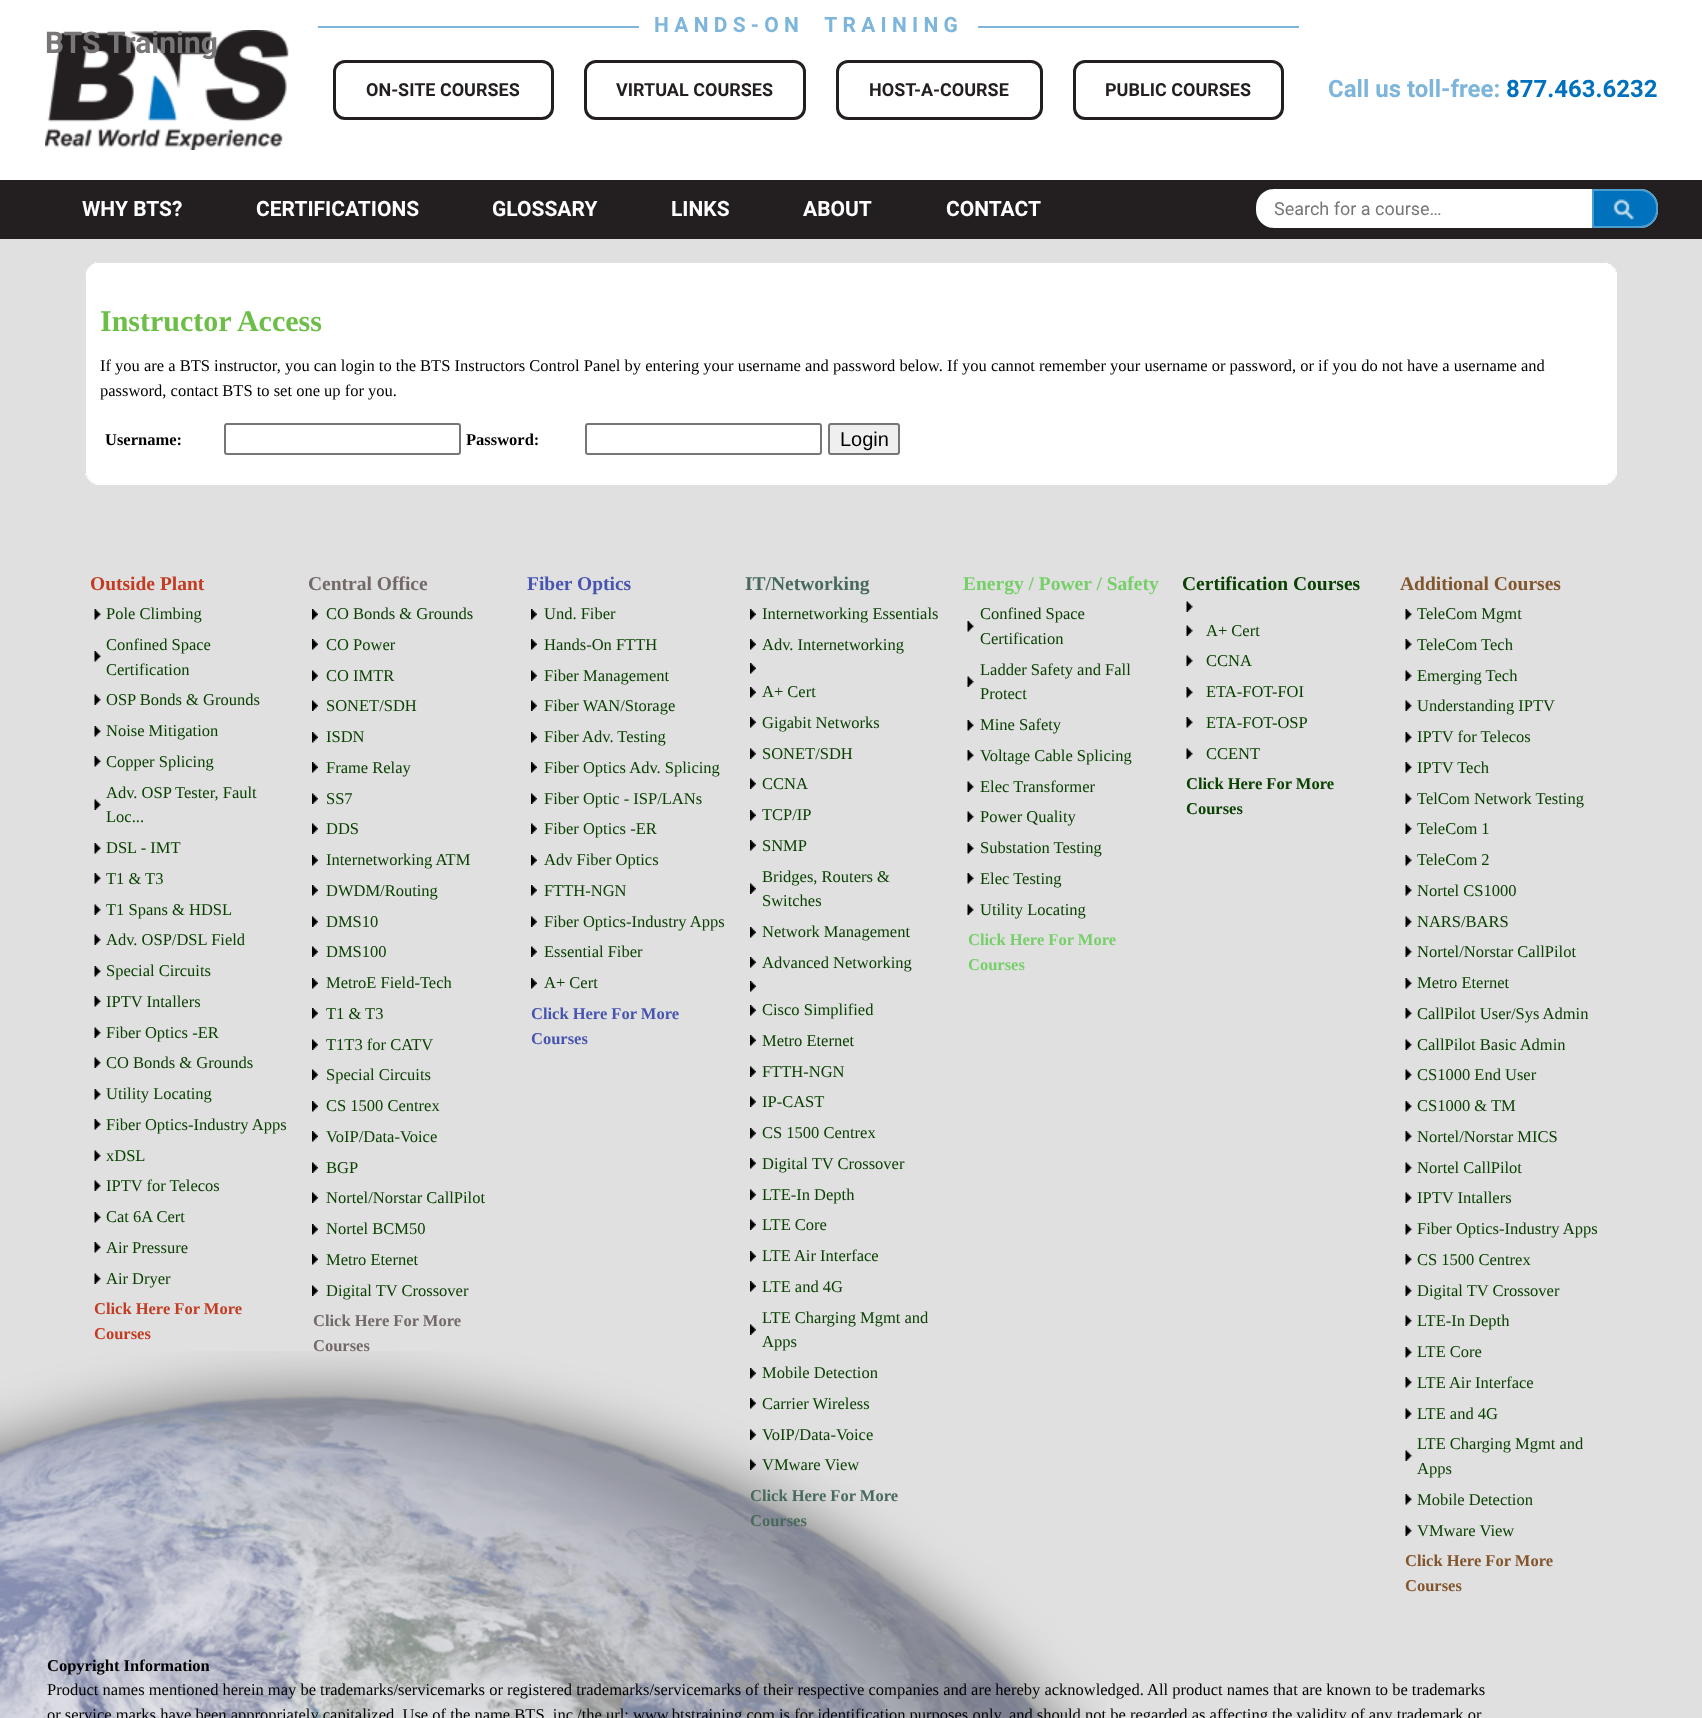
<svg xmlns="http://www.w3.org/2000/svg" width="1702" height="1718">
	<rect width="100%" height="100%" fill="#E0E0E0" />
	<image x="0" y="1351" width="1106" height="367" href="assets/img1.png" />
	<rect x="0" y="0" width="1702" height="180" fill="#FFFFFF" />
	<image x="45" y="30" width="244" height="120" href="assets/img2.png" />
	<text x="45" y="53" font-family="Roboto" font-size="30" font-weight="700" fill="#797677">BTS Training</text>
	<rect x="318" y="26" width="981" height="2" fill="#7DB5DB" />
	<rect x="639" y="26" width="339" height="2" fill="#FFFFFF" />
	<text x="654" y="32" font-family="Roboto" font-size="21" font-weight="700" letter-spacing="5.25" fill="#7DB5DB" xml:space="preserve">HANDS-ON  TRAINING</text>
	<rect x="334.5" y="61.5" width="218" height="57" rx="10.5" fill="none" stroke="#231F20" stroke-width="3" />
	<text x="366" y="96" font-family="Roboto" font-size="18" font-weight="700" fill="#231F20">ON-SITE COURSES</text>
	<rect x="585.5" y="61.5" width="219" height="57" rx="10.5" fill="none" stroke="#231F20" stroke-width="3" />
	<text x="616" y="96" font-family="Roboto" font-size="18" font-weight="700" fill="#231F20">VIRTUAL COURSES</text>
	<rect x="837.5" y="61.5" width="204" height="57" rx="10.5" fill="none" stroke="#231F20" stroke-width="3" />
	<text x="869" y="96" font-family="Roboto" font-size="18" font-weight="700" fill="#231F20">HOST-A-COURSE</text>
	<rect x="1074.5" y="61.5" width="208" height="57" rx="10.5" fill="none" stroke="#231F20" stroke-width="3" />
	<text x="1105" y="96" font-family="Roboto" font-size="18" font-weight="700" fill="#231F20">PUBLIC COURSES</text>
	<text x="1328" y="97" font-family="Roboto" font-size="24" font-weight="700" fill="#7DB5DB">Call us toll-free:</text>
	<text x="1506" y="97" font-family="Roboto" font-size="24" font-weight="700" fill="#0071BC">877.463.6232</text>
	<rect x="0" y="180" width="1702" height="59" fill="#231F20" />
	<g font-family="Roboto" font-size="21" font-weight="700" fill="#FFFFFF">
		<text x="82" y="216">WHY BTS?</text>
		<text x="256" y="216">CERTIFICATIONS</text>
		<text x="492" y="216">GLOSSARY</text>
		<text x="671" y="216">LINKS</text>
		<text x="803" y="216">ABOUT</text>
		<text x="946" y="216">CONTACT</text>
	</g>
	<rect x="1256" y="189" width="402" height="39" rx="18" fill="#FFFFFF" />
	<text x="1274" y="215" font-family="Roboto" font-size="18" fill="#797677">Search for a course…</text>
	<path d="M1592 189H1640C1650 189 1658 197 1658 207V210C1658 220 1650 228 1640 228H1592Z" fill="#0071BC" />
	<image x="1613" y="199" width="21" height="21" href="assets/img3.png" />
	<path d="M1593 190H1640C1649.5 190 1657 197.5 1657 207V210C1657 219.5 1649.5 227 1640 227H1593Z" fill="none" stroke="#FFFFFF" stroke-opacity="0.3" stroke-width="2" />
	<image x="85" y="262" width="11" height="11" href="assets/img4.png" />
	<rect x="96" y="263" width="1511" height="10" fill="#FFFFFF" />
	<image x="1606" y="262" width="11" height="11" href="assets/img5.png" />
	<rect x="86" y="273" width="1531" height="201" fill="#FFFFFF" />
	<text x="100" y="331" font-family="Liberation Serif" font-size="30" font-weight="700" fill="#6DBE47">Instructor Access</text>
	<g font-family="Liberation Serif" font-size="16.5" fill="#000000">
		<text x="100" y="371">If you are a BTS instructor, you can login to the BTS Instructors Control Panel by entering your username and password below. If you cannot remember your username or password, or if you do not have a username and</text>
		<text x="100" y="396">password, contact BTS to set one up for you.</text>
	</g>
	<text x="105" y="445" font-family="Liberation Serif" font-size="16.5" font-weight="700" fill="#000000">Username:</text>
	<rect x="225" y="424" width="235" height="30" rx="2" fill="none" stroke="#767676" stroke-width="2" />
	<text x="466" y="445" font-family="Liberation Serif" font-size="16.5" font-weight="700" fill="#000000">Password:</text>
	<rect x="586" y="424" width="235" height="30" rx="2" fill="none" stroke="#767676" stroke-width="2" />
	<rect x="829" y="424" width="70" height="30" rx="2" fill="#EFEFEF" stroke="#767676" stroke-width="2" />
	<text x="840" y="446" font-family="Liberation Sans" font-size="20" fill="#000000">Login</text>
	<image x="85" y="474" width="11" height="11" href="assets/img6.png" />
	<rect x="96" y="474" width="1511" height="11" fill="#FFFFFF" />
	<image x="1607" y="474" width="10" height="11" href="assets/img7.png" />
	<text x="90" y="590" font-family="Liberation Serif" font-size="19.5" font-weight="700" fill="#C23C22">Outside Plant</text>
	<image x="94" y="609" width="7" height="11" href="assets/img8.png" />
	<text x="106" y="619" font-family="Liberation Serif" font-size="16.5" fill="#0A4002">Pole Climbing</text>
	<image x="94" y="651" width="7" height="11" href="assets/img8.png" />
	<g font-family="Liberation Serif" font-size="16.5" fill="#0A4002">
		<text x="106" y="650">Confined Space</text>
		<text x="106" y="675">Certification</text>
	</g>
	<image x="94" y="694" width="7" height="11" href="assets/img9.png" />
	<text x="106" y="705" font-family="Liberation Serif" font-size="16.5" fill="#0A4002">OSP Bonds &amp; Grounds</text>
	<image x="94" y="726" width="7" height="11" href="assets/img8.png" />
	<text x="106" y="736" font-family="Liberation Serif" font-size="16.5" fill="#0A4002">Noise Mitigation</text>
	<image x="94" y="756" width="7" height="11" href="assets/img8.png" />
	<text x="106" y="767" font-family="Liberation Serif" font-size="16.5" fill="#0A4002">Copper Splicing</text>
	<image x="94" y="799" width="7" height="11" href="assets/img9.png" />
	<g font-family="Liberation Serif" font-size="16.5" fill="#0A4002">
		<text x="106" y="798">Adv. OSP Tester, Fault</text>
		<text x="106" y="822">Loc...</text>
	</g>
	<image x="94" y="843" width="7" height="11" href="assets/img8.png" />
	<text x="106" y="853" font-family="Liberation Serif" font-size="16.5" fill="#0A4002">DSL - IMT</text>
	<image x="94" y="873" width="7" height="11" href="assets/img8.png" />
	<text x="106" y="884" font-family="Liberation Serif" font-size="16.5" fill="#0A4002">T1 &amp; T3</text>
	<image x="94" y="904" width="7" height="11" href="assets/img9.png" />
	<text x="106" y="915" font-family="Liberation Serif" font-size="16.5" fill="#0A4002">T1 Spans &amp; HDSL</text>
	<image x="94" y="934" width="7" height="11" href="assets/img9.png" />
	<text x="106" y="945" font-family="Liberation Serif" font-size="16.5" fill="#0A4002">Adv. OSP/DSL Field</text>
	<image x="94" y="966" width="7" height="11" href="assets/img8.png" />
	<text x="106" y="976" font-family="Liberation Serif" font-size="16.5" fill="#0A4002">Special Circuits</text>
	<image x="94" y="996" width="7" height="11" href="assets/img8.png" />
	<text x="106" y="1007" font-family="Liberation Serif" font-size="16.5" fill="#0A4002">IPTV Intallers</text>
	<image x="94" y="1027" width="7" height="11" href="assets/img9.png" />
	<text x="106" y="1038" font-family="Liberation Serif" font-size="16.5" fill="#0A4002">Fiber Optics -ER</text>
	<image x="94" y="1057" width="7" height="11" href="assets/img9.png" />
	<text x="106" y="1068" font-family="Liberation Serif" font-size="16.5" fill="#0A4002">CO Bonds &amp; Grounds</text>
	<image x="94" y="1089" width="7" height="11" href="assets/img8.png" />
	<text x="106" y="1099" font-family="Liberation Serif" font-size="16.5" fill="#0A4002">Utility Locating</text>
	<image x="94" y="1119" width="7" height="11" href="assets/img8.png" />
	<text x="106" y="1130" font-family="Liberation Serif" font-size="16.5" fill="#0A4002">Fiber Optics-Industry Apps</text>
	<image x="94" y="1150" width="7" height="11" href="assets/img9.png" />
	<text x="106" y="1161" font-family="Liberation Serif" font-size="16.5" fill="#0A4002">xDSL</text>
	<image x="94" y="1180" width="7" height="11" href="assets/img9.png" />
	<text x="106" y="1191" font-family="Liberation Serif" font-size="16.5" fill="#0A4002">IPTV for Telecos</text>
	<image x="94" y="1212" width="7" height="11" href="assets/img8.png" />
	<text x="106" y="1222" font-family="Liberation Serif" font-size="16.5" fill="#0A4002">Cat 6A Cert</text>
	<image x="94" y="1242" width="7" height="11" href="assets/img8.png" />
	<text x="106" y="1253" font-family="Liberation Serif" font-size="16.5" fill="#0A4002">Air Pressure</text>
	<image x="94" y="1273" width="7" height="11" href="assets/img9.png" />
	<text x="106" y="1284" font-family="Liberation Serif" font-size="16.5" fill="#0A4002">Air Dryer</text>
	<g font-family="Liberation Serif" font-size="16.5" font-weight="700" fill="#C23C22">
		<text x="94" y="1314">Click Here For More</text>
		<text x="94" y="1339">Courses</text>
	</g>
	<text x="308" y="590" font-family="Liberation Serif" font-size="19.5" font-weight="700" fill="#726968">Central Office</text>
	<image x="312" y="609" width="6" height="11" href="assets/img10.png" />
	<text x="326" y="619" font-family="Liberation Serif" font-size="16.5" fill="#0A4002">CO Bonds &amp; Grounds</text>
	<image x="312" y="639" width="6" height="11" href="assets/img10.png" />
	<text x="326" y="650" font-family="Liberation Serif" font-size="16.5" fill="#0A4002">CO Power</text>
	<image x="312" y="670" width="6" height="11" href="assets/img11.png" />
	<text x="326" y="681" font-family="Liberation Serif" font-size="16.5" fill="#0A4002">CO IMTR</text>
	<image x="312" y="700" width="6" height="11" href="assets/img11.png" />
	<text x="326" y="711" font-family="Liberation Serif" font-size="16.5" fill="#0A4002">SONET/SDH</text>
	<image x="312" y="732" width="6" height="11" href="assets/img10.png" />
	<text x="326" y="742" font-family="Liberation Serif" font-size="16.5" fill="#0A4002">ISDN</text>
	<image x="312" y="762" width="6" height="11" href="assets/img10.png" />
	<text x="326" y="773" font-family="Liberation Serif" font-size="16.5" fill="#0A4002">Frame Relay</text>
	<image x="312" y="793" width="6" height="11" href="assets/img11.png" />
	<text x="326" y="804" font-family="Liberation Serif" font-size="16.5" fill="#0A4002">SS7</text>
	<image x="312" y="823" width="6" height="11" href="assets/img11.png" />
	<text x="326" y="834" font-family="Liberation Serif" font-size="16.5" fill="#0A4002">DDS</text>
	<image x="312" y="855" width="6" height="11" href="assets/img10.png" />
	<text x="326" y="865" font-family="Liberation Serif" font-size="16.5" fill="#0A4002">Internetworking ATM</text>
	<image x="312" y="885" width="6" height="11" href="assets/img10.png" />
	<text x="326" y="896" font-family="Liberation Serif" font-size="16.5" fill="#0A4002">DWDM/Routing</text>
	<image x="312" y="916" width="6" height="11" href="assets/img11.png" />
	<text x="326" y="927" font-family="Liberation Serif" font-size="16.5" fill="#0A4002">DMS10</text>
	<image x="312" y="946" width="6" height="11" href="assets/img11.png" />
	<text x="326" y="957" font-family="Liberation Serif" font-size="16.5" fill="#0A4002">DMS100</text>
	<image x="312" y="978" width="6" height="11" href="assets/img10.png" />
	<text x="326" y="988" font-family="Liberation Serif" font-size="16.5" fill="#0A4002">MetroE Field-Tech</text>
	<image x="312" y="1008" width="6" height="11" href="assets/img10.png" />
	<text x="326" y="1019" font-family="Liberation Serif" font-size="16.5" fill="#0A4002">T1 &amp; T3</text>
	<image x="312" y="1039" width="6" height="11" href="assets/img11.png" />
	<text x="326" y="1050" font-family="Liberation Serif" font-size="16.5" fill="#0A4002">T1T3 for CATV</text>
	<image x="312" y="1069" width="6" height="11" href="assets/img11.png" />
	<text x="326" y="1080" font-family="Liberation Serif" font-size="16.5" fill="#0A4002">Special Circuits</text>
	<image x="312" y="1101" width="6" height="11" href="assets/img10.png" />
	<text x="326" y="1111" font-family="Liberation Serif" font-size="16.5" fill="#0A4002">CS 1500 Centrex</text>
	<image x="312" y="1131" width="6" height="11" href="assets/img10.png" />
	<text x="326" y="1142" font-family="Liberation Serif" font-size="16.5" fill="#0A4002">VoIP/Data-Voice</text>
	<image x="312" y="1162" width="6" height="11" href="assets/img11.png" />
	<text x="326" y="1173" font-family="Liberation Serif" font-size="16.5" fill="#0A4002">BGP</text>
	<image x="312" y="1192" width="6" height="11" href="assets/img11.png" />
	<text x="326" y="1203" font-family="Liberation Serif" font-size="16.5" fill="#0A4002">Nortel/Norstar CallPilot</text>
	<image x="312" y="1224" width="6" height="11" href="assets/img10.png" />
	<text x="326" y="1234" font-family="Liberation Serif" font-size="16.5" fill="#0A4002">Nortel BCM50</text>
	<image x="312" y="1254" width="6" height="11" href="assets/img10.png" />
	<text x="326" y="1265" font-family="Liberation Serif" font-size="16.5" fill="#0A4002">Metro Eternet</text>
	<image x="312" y="1285" width="6" height="11" href="assets/img11.png" />
	<text x="326" y="1296" font-family="Liberation Serif" font-size="16.5" fill="#0A4002">Digital TV Crossover</text>
	<g font-family="Liberation Serif" font-size="16.5" font-weight="700" fill="#726968">
		<text x="313" y="1326">Click Here For More</text>
		<text x="313" y="1351">Courses</text>
	</g>
	<text x="527" y="590" font-family="Liberation Serif" font-size="19.5" font-weight="700" fill="#4755B0">Fiber Optics</text>
	<image x="531" y="609" width="6" height="11" href="assets/img10.png" />
	<text x="544" y="619" font-family="Liberation Serif" font-size="16.5" fill="#0A4002">Und. Fiber</text>
	<image x="531" y="639" width="6" height="11" href="assets/img10.png" />
	<text x="544" y="650" font-family="Liberation Serif" font-size="16.5" fill="#0A4002">Hands-On FTTH</text>
	<image x="531" y="670" width="6" height="11" href="assets/img11.png" />
	<text x="544" y="681" font-family="Liberation Serif" font-size="16.5" fill="#0A4002">Fiber Management</text>
	<image x="531" y="700" width="6" height="11" href="assets/img11.png" />
	<text x="544" y="711" font-family="Liberation Serif" font-size="16.5" fill="#0A4002">Fiber WAN/Storage</text>
	<image x="531" y="732" width="6" height="11" href="assets/img10.png" />
	<text x="544" y="742" font-family="Liberation Serif" font-size="16.5" fill="#0A4002">Fiber Adv. Testing</text>
	<image x="531" y="762" width="6" height="11" href="assets/img10.png" />
	<text x="544" y="773" font-family="Liberation Serif" font-size="16.5" fill="#0A4002">Fiber Optics Adv. Splicing</text>
	<image x="531" y="793" width="6" height="11" href="assets/img11.png" />
	<text x="544" y="804" font-family="Liberation Serif" font-size="16.5" fill="#0A4002">Fiber Optic - ISP/LANs</text>
	<image x="531" y="823" width="6" height="11" href="assets/img11.png" />
	<text x="544" y="834" font-family="Liberation Serif" font-size="16.5" fill="#0A4002">Fiber Optics -ER</text>
	<image x="531" y="855" width="6" height="11" href="assets/img10.png" />
	<text x="544" y="865" font-family="Liberation Serif" font-size="16.5" fill="#0A4002">Adv Fiber Optics</text>
	<image x="531" y="885" width="6" height="11" href="assets/img10.png" />
	<text x="544" y="896" font-family="Liberation Serif" font-size="16.5" fill="#0A4002">FTTH-NGN</text>
	<image x="531" y="916" width="6" height="11" href="assets/img11.png" />
	<text x="544" y="927" font-family="Liberation Serif" font-size="16.5" fill="#0A4002">Fiber Optics-Industry Apps</text>
	<image x="531" y="946" width="6" height="11" href="assets/img11.png" />
	<text x="544" y="957" font-family="Liberation Serif" font-size="16.5" fill="#0A4002">Essential Fiber</text>
	<image x="531" y="978" width="6" height="11" href="assets/img10.png" />
	<text x="544" y="988" font-family="Liberation Serif" font-size="16.5" fill="#0A4002">A+ Cert</text>
	<g font-family="Liberation Serif" font-size="16.5" font-weight="700" fill="#4755B0">
		<text x="531" y="1019">Click Here For More</text>
		<text x="531" y="1044">Courses</text>
	</g>
	<text x="745" y="590" font-family="Liberation Serif" font-size="19.5" font-weight="700" fill="#486A5C">IT/Networking</text>
	<image x="750" y="609" width="6" height="11" href="assets/img10.png" />
	<text x="762" y="619" font-family="Liberation Serif" font-size="16.5" fill="#0A4002">Internetworking Essentials</text>
	<image x="750" y="639" width="6" height="11" href="assets/img10.png" />
	<text x="762" y="650" font-family="Liberation Serif" font-size="16.5" fill="#0A4002">Adv. Internetworking</text>
	<image x="750" y="663" width="6" height="11" href="assets/img10.png" />
	<image x="750" y="687" width="6" height="11" href="assets/img10.png" />
	<text x="762" y="697" font-family="Liberation Serif" font-size="16.5" fill="#0A4002">A+ Cert</text>
	<image x="750" y="717" width="6" height="11" href="assets/img10.png" />
	<text x="762" y="728" font-family="Liberation Serif" font-size="16.5" fill="#0A4002">Gigabit Networks</text>
	<image x="750" y="748" width="6" height="11" href="assets/img11.png" />
	<text x="762" y="759" font-family="Liberation Serif" font-size="16.5" fill="#0A4002">SONET/SDH</text>
	<image x="750" y="778" width="6" height="11" href="assets/img11.png" />
	<text x="762" y="789" font-family="Liberation Serif" font-size="16.5" fill="#0A4002">CCNA</text>
	<image x="750" y="810" width="6" height="11" href="assets/img10.png" />
	<text x="762" y="820" font-family="Liberation Serif" font-size="16.5" fill="#0A4002">TCP/IP</text>
	<image x="750" y="840" width="6" height="11" href="assets/img10.png" />
	<text x="762" y="851" font-family="Liberation Serif" font-size="16.5" fill="#0A4002">SNMP</text>
	<image x="750" y="883" width="6" height="11" href="assets/img11.png" />
	<g font-family="Liberation Serif" font-size="16.5" fill="#0A4002">
		<text x="762" y="882">Bridges, Routers &amp;</text>
		<text x="762" y="906">Switches</text>
	</g>
	<image x="750" y="927" width="6" height="11" href="assets/img10.png" />
	<text x="762" y="937" font-family="Liberation Serif" font-size="16.5" fill="#0A4002">Network Management</text>
	<image x="750" y="957" width="6" height="11" href="assets/img10.png" />
	<text x="762" y="968" font-family="Liberation Serif" font-size="16.5" fill="#0A4002">Advanced Networking</text>
	<image x="750" y="981" width="6" height="11" href="assets/img10.png" />
	<image x="750" y="1005" width="6" height="11" href="assets/img10.png" />
	<text x="762" y="1015" font-family="Liberation Serif" font-size="16.5" fill="#0A4002">Cisco Simplified</text>
	<image x="750" y="1035" width="6" height="11" href="assets/img10.png" />
	<text x="762" y="1046" font-family="Liberation Serif" font-size="16.5" fill="#0A4002">Metro Eternet</text>
	<image x="750" y="1066" width="6" height="11" href="assets/img11.png" />
	<text x="762" y="1077" font-family="Liberation Serif" font-size="16.5" fill="#0A4002">FTTH-NGN</text>
	<image x="750" y="1096" width="6" height="11" href="assets/img11.png" />
	<text x="762" y="1107" font-family="Liberation Serif" font-size="16.5" fill="#0A4002">IP-CAST</text>
	<image x="750" y="1128" width="6" height="11" href="assets/img10.png" />
	<text x="762" y="1138" font-family="Liberation Serif" font-size="16.5" fill="#0A4002">CS 1500 Centrex</text>
	<image x="750" y="1158" width="6" height="11" href="assets/img10.png" />
	<text x="762" y="1169" font-family="Liberation Serif" font-size="16.5" fill="#0A4002">Digital TV Crossover</text>
	<image x="750" y="1189" width="6" height="11" href="assets/img11.png" />
	<text x="762" y="1200" font-family="Liberation Serif" font-size="16.5" fill="#0A4002">LTE-In Depth</text>
	<image x="750" y="1219" width="6" height="11" href="assets/img11.png" />
	<text x="762" y="1230" font-family="Liberation Serif" font-size="16.5" fill="#0A4002">LTE Core</text>
	<image x="750" y="1251" width="6" height="11" href="assets/img10.png" />
	<text x="762" y="1261" font-family="Liberation Serif" font-size="16.5" fill="#0A4002">LTE Air Interface</text>
	<image x="750" y="1281" width="6" height="11" href="assets/img10.png" />
	<text x="762" y="1292" font-family="Liberation Serif" font-size="16.5" fill="#0A4002">LTE and 4G</text>
	<image x="750" y="1324" width="6" height="11" href="assets/img11.png" />
	<g font-family="Liberation Serif" font-size="16.5" fill="#0A4002">
		<text x="762" y="1323">LTE Charging Mgmt and</text>
		<text x="762" y="1347">Apps</text>
	</g>
	<image x="750" y="1368" width="6" height="11" href="assets/img10.png" />
	<text x="762" y="1378" font-family="Liberation Serif" font-size="16.5" fill="#0A4002">Mobile Detection</text>
	<image x="750" y="1398" width="6" height="11" href="assets/img10.png" />
	<text x="762" y="1409" font-family="Liberation Serif" font-size="16.5" fill="#0A4002">Carrier Wireless</text>
	<image x="750" y="1429" width="6" height="11" href="assets/img12.png" />
	<text x="762" y="1440" font-family="Liberation Serif" font-size="16.5" fill="#0A4002">VoIP/Data-Voice</text>
	<image x="750" y="1459" width="6" height="11" href="assets/img13.png" />
	<text x="762" y="1470" font-family="Liberation Serif" font-size="16.5" fill="#0A4002">VMware View</text>
	<g font-family="Liberation Serif" font-size="16.5" font-weight="700" fill="#486A5C">
		<text x="750" y="1501">Click Here For More</text>
		<text x="750" y="1526">Courses</text>
	</g>
	<text x="963" y="590" font-family="Liberation Serif" font-size="19.5" font-weight="700" fill="#77CF6A">Energy / Power / Safety</text>
	<image x="967" y="621" width="7" height="11" href="assets/img8.png" />
	<g font-family="Liberation Serif" font-size="16.5" fill="#0A4002">
		<text x="980" y="619">Confined Space</text>
		<text x="980" y="644">Certification</text>
	</g>
	<image x="967" y="676" width="7" height="11" href="assets/img9.png" />
	<g font-family="Liberation Serif" font-size="16.5" fill="#0A4002">
		<text x="980" y="675">Ladder Safety and Fall</text>
		<text x="980" y="699">Protect</text>
	</g>
	<image x="967" y="720" width="7" height="11" href="assets/img8.png" />
	<text x="980" y="730" font-family="Liberation Serif" font-size="16.5" fill="#0A4002">Mine Safety</text>
	<image x="967" y="750" width="7" height="11" href="assets/img8.png" />
	<text x="980" y="761" font-family="Liberation Serif" font-size="16.5" fill="#0A4002">Voltage Cable Splicing</text>
	<image x="967" y="781" width="7" height="11" href="assets/img9.png" />
	<text x="980" y="792" font-family="Liberation Serif" font-size="16.5" fill="#0A4002">Elec Transformer</text>
	<image x="967" y="811" width="7" height="11" href="assets/img9.png" />
	<text x="980" y="822" font-family="Liberation Serif" font-size="16.5" fill="#0A4002">Power Quality</text>
	<image x="967" y="843" width="7" height="11" href="assets/img8.png" />
	<text x="980" y="853" font-family="Liberation Serif" font-size="16.5" fill="#0A4002">Substation Testing</text>
	<image x="967" y="873" width="7" height="11" href="assets/img8.png" />
	<text x="980" y="884" font-family="Liberation Serif" font-size="16.5" fill="#0A4002">Elec Testing</text>
	<image x="967" y="904" width="7" height="11" href="assets/img9.png" />
	<text x="980" y="915" font-family="Liberation Serif" font-size="16.5" fill="#0A4002">Utility Locating</text>
	<g font-family="Liberation Serif" font-size="16.5" font-weight="700" fill="#77CF6A">
		<text x="968" y="945">Click Here For More</text>
		<text x="968" y="970">Courses</text>
	</g>
	<text x="1182" y="590" font-family="Liberation Serif" font-size="19.5" font-weight="700" fill="#0A4002">Certification Courses</text>
	<image x="1186" y="601" width="7" height="11" href="assets/img14.png" />
	<image x="1186" y="625" width="7" height="11" href="assets/img14.png" />
	<text x="1206" y="636" font-family="Liberation Serif" font-size="16.5" fill="#0A4002">A+ Cert</text>
	<image x="1186" y="655" width="7" height="11" href="assets/img14.png" />
	<text x="1206" y="666" font-family="Liberation Serif" font-size="16.5" fill="#0A4002">CCNA</text>
	<image x="1186" y="687" width="7" height="11" href="assets/img15.png" />
	<text x="1206" y="697" font-family="Liberation Serif" font-size="16.5" fill="#0A4002">ETA-FOT-FOI</text>
	<image x="1186" y="717" width="7" height="11" href="assets/img15.png" />
	<text x="1206" y="728" font-family="Liberation Serif" font-size="16.5" fill="#0A4002">ETA-FOT-OSP</text>
	<image x="1186" y="748" width="7" height="11" href="assets/img14.png" />
	<text x="1206" y="759" font-family="Liberation Serif" font-size="16.5" fill="#0A4002">CCENT</text>
	<g font-family="Liberation Serif" font-size="16.5" font-weight="700" fill="#0A4002">
		<text x="1186" y="789">Click Here For More</text>
		<text x="1186" y="814">Courses</text>
	</g>
	<text x="1400" y="590" font-family="Liberation Serif" font-size="19.5" font-weight="700" fill="#82562D">Additional Courses</text>
	<image x="1405" y="609" width="7" height="11" href="assets/img15.png" />
	<text x="1417" y="619" font-family="Liberation Serif" font-size="16.5" fill="#0A4002">TeleCom Mgmt</text>
	<image x="1405" y="639" width="7" height="11" href="assets/img15.png" />
	<text x="1417" y="650" font-family="Liberation Serif" font-size="16.5" fill="#0A4002">TeleCom Tech</text>
	<image x="1405" y="670" width="7" height="11" href="assets/img14.png" />
	<text x="1417" y="681" font-family="Liberation Serif" font-size="16.5" fill="#0A4002">Emerging Tech</text>
	<image x="1405" y="700" width="7" height="11" href="assets/img14.png" />
	<text x="1417" y="711" font-family="Liberation Serif" font-size="16.5" fill="#0A4002">Understanding IPTV</text>
	<image x="1405" y="732" width="7" height="11" href="assets/img15.png" />
	<text x="1417" y="742" font-family="Liberation Serif" font-size="16.5" fill="#0A4002">IPTV for Telecos</text>
	<image x="1405" y="762" width="7" height="11" href="assets/img15.png" />
	<text x="1417" y="773" font-family="Liberation Serif" font-size="16.5" fill="#0A4002">IPTV Tech</text>
	<image x="1405" y="793" width="7" height="11" href="assets/img14.png" />
	<text x="1417" y="804" font-family="Liberation Serif" font-size="16.5" fill="#0A4002">TelCom Network Testing</text>
	<image x="1405" y="823" width="7" height="11" href="assets/img14.png" />
	<text x="1417" y="834" font-family="Liberation Serif" font-size="16.5" fill="#0A4002">TeleCom 1</text>
	<image x="1405" y="855" width="7" height="11" href="assets/img15.png" />
	<text x="1417" y="865" font-family="Liberation Serif" font-size="16.5" fill="#0A4002">TeleCom 2</text>
	<image x="1405" y="885" width="7" height="11" href="assets/img15.png" />
	<text x="1417" y="896" font-family="Liberation Serif" font-size="16.5" fill="#0A4002">Nortel CS1000</text>
	<image x="1405" y="916" width="7" height="11" href="assets/img14.png" />
	<text x="1417" y="927" font-family="Liberation Serif" font-size="16.5" fill="#0A4002">NARS/BARS</text>
	<image x="1405" y="946" width="7" height="11" href="assets/img14.png" />
	<text x="1417" y="957" font-family="Liberation Serif" font-size="16.5" fill="#0A4002">Nortel/Norstar CallPilot</text>
	<image x="1405" y="978" width="7" height="11" href="assets/img15.png" />
	<text x="1417" y="988" font-family="Liberation Serif" font-size="16.5" fill="#0A4002">Metro Eternet</text>
	<image x="1405" y="1008" width="7" height="11" href="assets/img15.png" />
	<text x="1417" y="1019" font-family="Liberation Serif" font-size="16.5" fill="#0A4002">CallPilot User/Sys Admin</text>
	<image x="1405" y="1039" width="7" height="11" href="assets/img14.png" />
	<text x="1417" y="1050" font-family="Liberation Serif" font-size="16.5" fill="#0A4002">CallPilot Basic Admin</text>
	<image x="1405" y="1069" width="7" height="11" href="assets/img14.png" />
	<text x="1417" y="1080" font-family="Liberation Serif" font-size="16.5" fill="#0A4002">CS1000 End User</text>
	<image x="1405" y="1101" width="7" height="11" href="assets/img15.png" />
	<text x="1417" y="1111" font-family="Liberation Serif" font-size="16.5" fill="#0A4002">CS1000 &amp; TM</text>
	<image x="1405" y="1131" width="7" height="11" href="assets/img15.png" />
	<text x="1417" y="1142" font-family="Liberation Serif" font-size="16.5" fill="#0A4002">Nortel/Norstar MICS</text>
	<image x="1405" y="1162" width="7" height="11" href="assets/img14.png" />
	<text x="1417" y="1173" font-family="Liberation Serif" font-size="16.5" fill="#0A4002">Nortel CallPilot</text>
	<image x="1405" y="1192" width="7" height="11" href="assets/img14.png" />
	<text x="1417" y="1203" font-family="Liberation Serif" font-size="16.5" fill="#0A4002">IPTV Intallers</text>
	<image x="1405" y="1224" width="7" height="11" href="assets/img15.png" />
	<text x="1417" y="1234" font-family="Liberation Serif" font-size="16.5" fill="#0A4002">Fiber Optics-Industry Apps</text>
	<image x="1405" y="1254" width="7" height="11" href="assets/img15.png" />
	<text x="1417" y="1265" font-family="Liberation Serif" font-size="16.5" fill="#0A4002">CS 1500 Centrex</text>
	<image x="1405" y="1285" width="7" height="11" href="assets/img14.png" />
	<text x="1417" y="1296" font-family="Liberation Serif" font-size="16.5" fill="#0A4002">Digital TV Crossover</text>
	<image x="1405" y="1315" width="7" height="11" href="assets/img14.png" />
	<text x="1417" y="1326" font-family="Liberation Serif" font-size="16.5" fill="#0A4002">LTE-In Depth</text>
	<image x="1405" y="1347" width="7" height="11" href="assets/img15.png" />
	<text x="1417" y="1357" font-family="Liberation Serif" font-size="16.5" fill="#0A4002">LTE Core</text>
	<image x="1405" y="1377" width="7" height="11" href="assets/img15.png" />
	<text x="1417" y="1388" font-family="Liberation Serif" font-size="16.5" fill="#0A4002">LTE Air Interface</text>
	<image x="1405" y="1408" width="7" height="11" href="assets/img14.png" />
	<text x="1417" y="1419" font-family="Liberation Serif" font-size="16.5" fill="#0A4002">LTE and 4G</text>
	<image x="1405" y="1450" width="7" height="11" href="assets/img14.png" />
	<g font-family="Liberation Serif" font-size="16.5" fill="#0A4002">
		<text x="1417" y="1449">LTE Charging Mgmt and</text>
		<text x="1417" y="1474">Apps</text>
	</g>
	<image x="1405" y="1494" width="7" height="11" href="assets/img15.png" />
	<text x="1417" y="1505" font-family="Liberation Serif" font-size="16.5" fill="#0A4002">Mobile Detection</text>
	<image x="1405" y="1525" width="7" height="11" href="assets/img14.png" />
	<text x="1417" y="1536" font-family="Liberation Serif" font-size="16.5" fill="#0A4002">VMware View</text>
	<g font-family="Liberation Serif" font-size="16.5" font-weight="700" fill="#82562D">
		<text x="1405" y="1566">Click Here For More</text>
		<text x="1405" y="1591">Courses</text>
	</g>
	<text x="47" y="1671" font-family="Liberation Serif" font-size="16.5" font-weight="700" fill="#000000">Copyright Information</text>
	<g font-family="Liberation Serif" font-size="16.5" fill="#000000">
		<text x="47" y="1695">Product names mentioned herein may be trademarks/servicemarks or registered trademarks/servicemarks of their respective companies and are hereby acknowledged. All product names that are known to be trademarks</text>
		<text x="47" y="1720">or service marks have been appropriately capitalized. Use of the name BTS, inc./the url: www.btstraining.com is for identification purposes only, and should not be regarded as affecting the validity of any trademark or</text>
	</g>
</svg>
